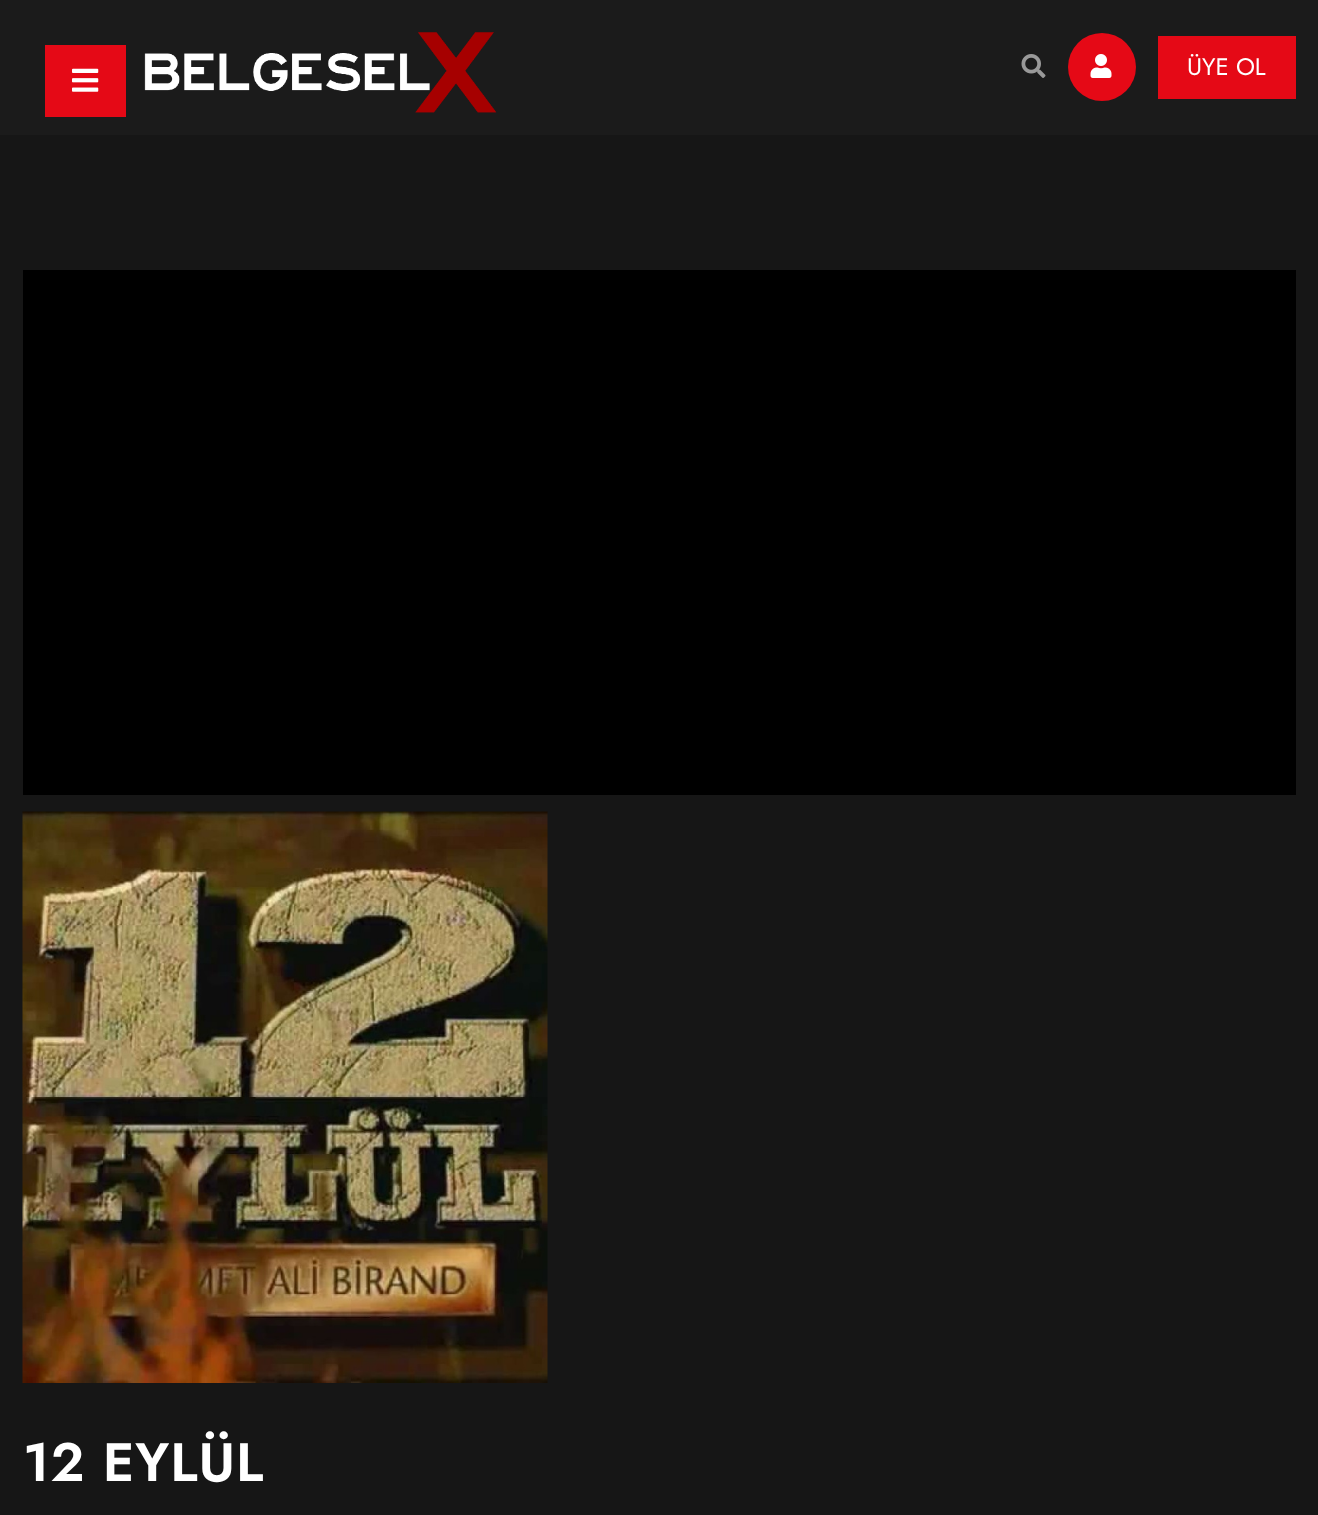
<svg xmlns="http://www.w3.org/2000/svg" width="1318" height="1515">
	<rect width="100%" height="100%" fill="#161616" />
	<rect x="0" y="0" width="1318" height="135" fill="#1B1B1B" />
	<rect x="45" y="45" width="81" height="72" fill="#E50916" />
	<image x="72" y="68" width="27" height="24" href="assets/img1.png" />
	<image x="144" y="32" width="353" height="81" href="assets/img2.png" />
	<image x="1021" y="54" width="25" height="24" href="assets/img3.png" />
	<circle cx="1102" cy="67" r="34" fill="#E50916" />
	<image x="1090" y="54" width="22" height="24" href="assets/img4.png" />
	<rect x="1158" y="36" width="138" height="63" fill="#E50916" />
	<text x="1187" y="75" font-family="Jost" font-size="24" fill="#FFFFFF">ÜYE OL</text>
	<rect x="23" y="270" width="1273" height="525" fill="#000000" />
	<image x="22" y="811" width="526" height="572" href="assets/img5.png" />
	<text x="23" y="1481" font-family="Jost" font-size="54" font-weight="600" letter-spacing="1" fill="#FFFFFF">12 EYLÜL</text>
</svg>
